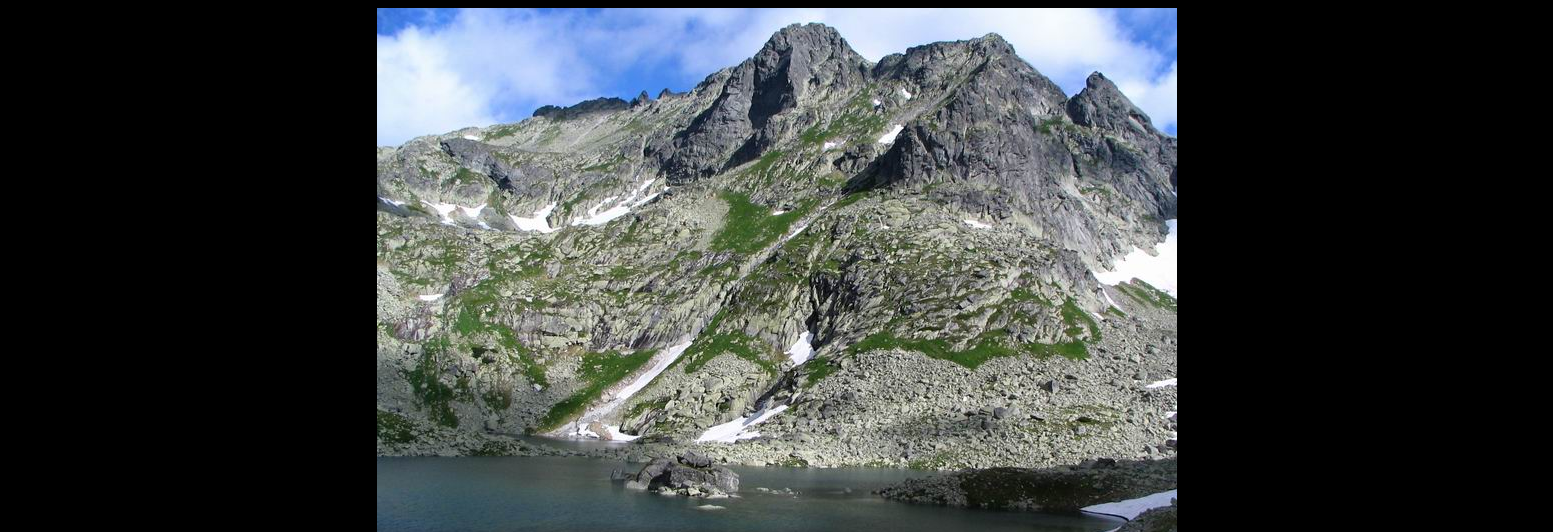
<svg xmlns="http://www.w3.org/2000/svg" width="1553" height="532">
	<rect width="100%" height="100%" fill="#000000" />
	<image x="377" y="8" width="800" height="524" href="assets/img1.png" />
</svg>
